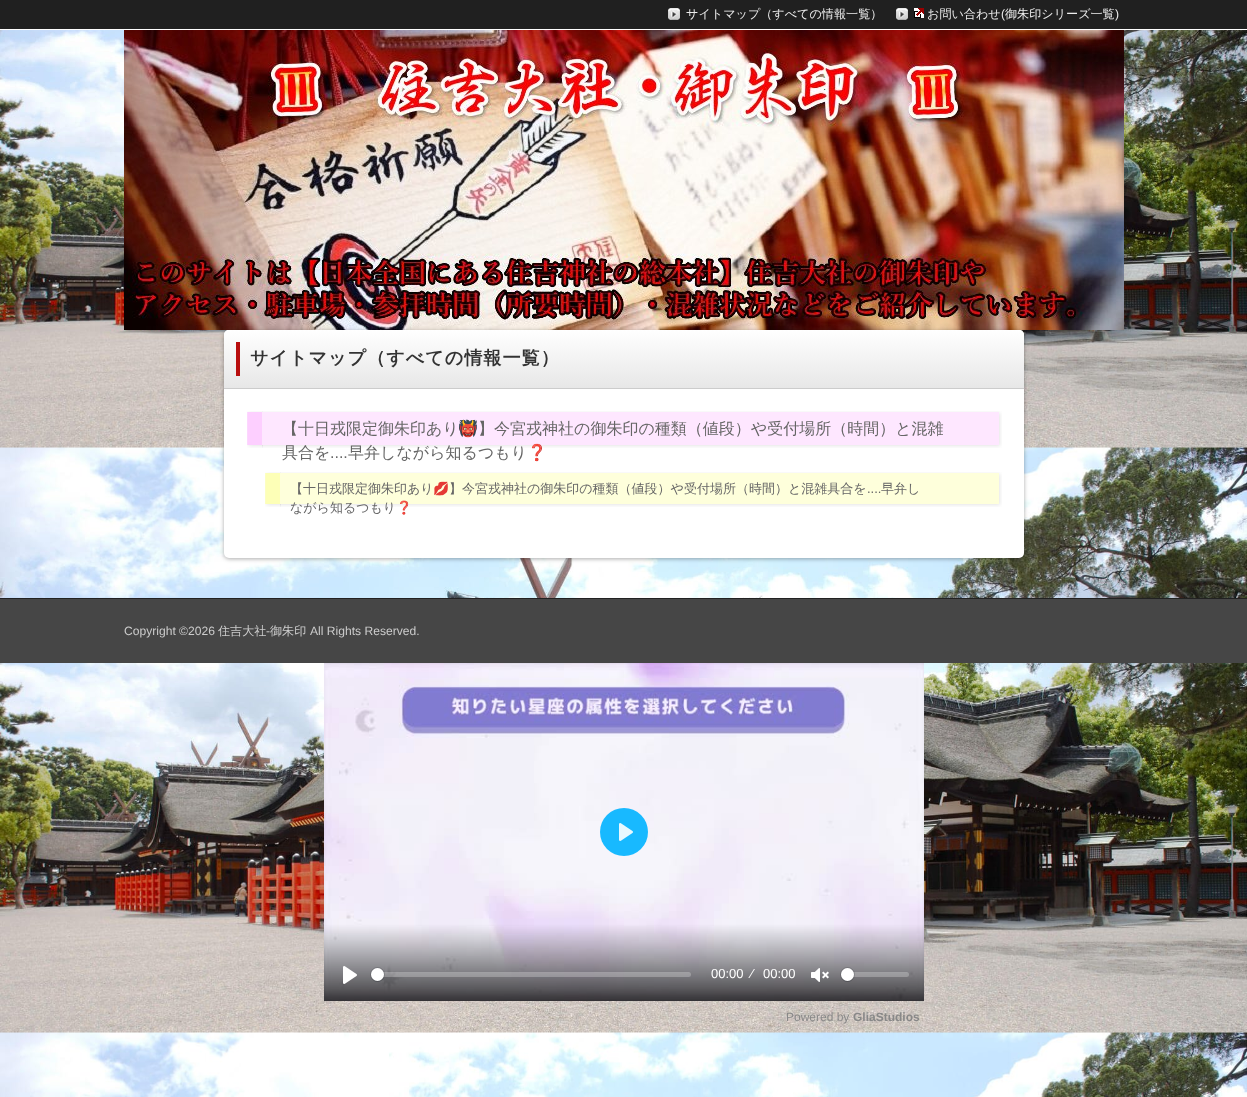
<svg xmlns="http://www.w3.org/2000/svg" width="1247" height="1097">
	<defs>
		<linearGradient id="g1" gradientUnits="userSpaceOnUse" x1="624" y1="330" x2="624" y2="388"><stop offset="0" stop-color="#FFFFFF" /><stop offset="1" stop-color="#E7E7E7" /></linearGradient>
	</defs>
	<rect width="100%" height="100%" fill="#FFFFFF" />
	<image x="0" y="30" width="1247" height="1067" href="assets/img1.png" />
	<rect x="0" y="0" width="1247" height="29" fill="#202020" />
	<image x="668" y="8" width="12" height="12" href="assets/img2.png" />
	<text x="686" y="18" font-family="WenQuanYi Zen Hei" font-size="12.1" font-weight="500" fill="#EDEDED">サイトマップ（すべての情報一覧）</text>
	<image x="896" y="8" width="12" height="12" href="assets/img2.png" />
	<image x="914" y="8" width="10" height="10" href="assets/img3.png" />
	<text x="927" y="18" font-family="WenQuanYi Zen Hei" font-size="12.1" font-weight="500" fill="#EDEDED">お問い合わせ</text>
	<text x="1001" y="18" font-family="Liberation Sans" font-size="12.1" fill="#EDEDED">(</text>
	<text x="1005" y="18" font-family="WenQuanYi Zen Hei" font-size="12.1" font-weight="500" fill="#EDEDED">御朱印シリーズ一覧</text>
	<text x="1115" y="18" font-family="Liberation Sans" font-size="12.1" fill="#EDEDED">)</text>
	<image x="124" y="30" width="1000" height="300" href="assets/img4.png" />
	<rect x="224" y="331" width="800" height="228" rx="5" fill="#000000" fill-opacity="0.33" filter="blur(2px)" />
	<rect x="224" y="330" width="800" height="228" rx="5" fill="#FFFFFF" />
	<path d="M229 330H1019C1022 330 1024 332 1024 335V388H224V335C224 332 226 330 229 330Z" fill="url(#g1)" />
	<rect x="224" y="388" width="800" height="1" fill="#CCCCCC" />
	<rect x="236" y="342" width="4" height="34" fill="#B80E0E" />
	<text x="250" y="364" font-family="WenQuanYi Zen Hei" font-size="18.1" font-weight="700" letter-spacing="1" fill="#333333">サイトマップ（すべての情報一覧）</text>
	<image x="247" y="411" width="16" height="37" href="assets/img5.png" />
	<image x="262" y="411" width="740" height="37" href="assets/img6.png" />
	<text x="282" y="434" font-family="WenQuanYi Zen Hei" font-size="16" font-weight="500" fill="#666666">【十日戎限定御朱印あり</text>
	<text x="458" y="434" font-family="Noto Color Emoji" font-size="16" fill="#666666">👹</text>
	<g font-family="WenQuanYi Zen Hei" font-size="16" font-weight="500" fill="#666666">
		<text x="478" y="434">】今宮戎神社の御朱印の種類（値段）や受付場所（時間）と混雑</text>
		<text x="282" y="458">具合を</text>
	</g>
	<text x="330" y="458" font-family="Liberation Sans" font-size="16" fill="#666666">....</text>
	<text x="348" y="458" font-family="WenQuanYi Zen Hei" font-size="16" font-weight="500" fill="#666666">早弁しながら知るつもり</text>
	<text x="527" y="458" font-family="Noto Color Emoji" font-size="16" fill="#666666">❓</text>
	<image x="265" y="472" width="16" height="35" href="assets/img7.png" />
	<image x="280" y="472" width="722" height="35" href="assets/img8.png" />
	<text x="290" y="493" font-family="WenQuanYi Zen Hei" font-size="13" font-weight="500" fill="#666666">【十日戎限定御朱印あり</text>
	<text x="433" y="493" font-family="Noto Color Emoji" font-size="13" fill="#666666">💋</text>
	<text x="449" y="493" font-family="WenQuanYi Zen Hei" font-size="13" font-weight="500" fill="#666666">】今宮戎神社の御朱印の種類（値段）や受付場所（時間）と混雑具合を</text>
	<text x="867" y="493" font-family="Liberation Sans" font-size="13" fill="#666666">....</text>
	<g font-family="WenQuanYi Zen Hei" font-size="13" font-weight="500" fill="#666666">
		<text x="881" y="493">早弁し</text>
		<text x="290" y="512">ながら知るつもり</text>
	</g>
	<text x="396" y="512" font-family="Noto Color Emoji" font-size="13" fill="#666666">❓</text>
	<rect x="0" y="599" width="1247" height="64" fill="#464646" />
	<rect x="0" y="598" width="1247" height="1" fill="#222222" />
	<text x="124" y="635" font-family="Liberation Sans" font-size="12.1" fill="#CCCCCC">Copyright ©2026</text>
	<text x="218" y="635" font-family="WenQuanYi Zen Hei" font-size="12.1" font-weight="500" fill="#CCCCCC">住吉大社</text>
	<text x="266" y="635" font-family="Liberation Sans" font-size="12.1" fill="#CCCCCC">-</text>
	<text x="270" y="635" font-family="WenQuanYi Zen Hei" font-size="12.1" font-weight="500" fill="#CCCCCC">御朱印</text>
	<text x="310" y="635" font-family="Liberation Sans" font-size="12.1" fill="#CCCCCC">All Rights Reserved.</text>
	<image x="324" y="663" width="600" height="338" href="assets/img9.png" />
	<circle cx="624" cy="832" r="24" fill="#00B2FF" fill-opacity="0.9" />
	<image x="619" y="823" width="14" height="18" href="assets/img10.png" />
	<image x="343" y="966" width="14" height="18" href="assets/img11.png" />
	<rect x="371" y="972" width="320" height="5" rx="2.5" fill="#FFFFFF" fill-opacity="0.25" />
	<circle cx="377.5" cy="974.5" r="7" fill="none" stroke="#23282F" stroke-opacity="0.2" />
	<rect x="371" y="969" width="13" height="13" rx="6.5" fill="#23282F" fill-opacity="0.15" filter="blur(0.5px)" />
	<circle cx="377.5" cy="974.5" r="6.5" fill="#FFFFFF" />
	<g font-family="Liberation Sans" font-size="13" fill="#FFFFFF">
		<text x="711" y="978">00:00</text>
		<text x="751" y="978">⁄</text>
		<text x="763" y="978">00:00</text>
	</g>
	<image x="811" y="968" width="18" height="14" href="assets/img12.png" />
	<rect x="841" y="972" width="68" height="5" rx="2.5" fill="#FFFFFF" fill-opacity="0.25" />
	<circle cx="847.5" cy="974.5" r="7" fill="none" stroke="#23282F" stroke-opacity="0.2" />
	<rect x="841" y="969" width="13" height="13" rx="6.5" fill="#23282F" fill-opacity="0.15" filter="blur(0.5px)" />
	<circle cx="847.5" cy="974.5" r="6.5" fill="#FFFFFF" />
	<text x="786" y="1021" font-family="Liberation Sans" font-size="12" fill="#888888">Powered by</text>
	<text x="853" y="1021" font-family="Liberation Sans" font-size="12" font-weight="700" fill="#888888">GliaStudios</text>
</svg>
